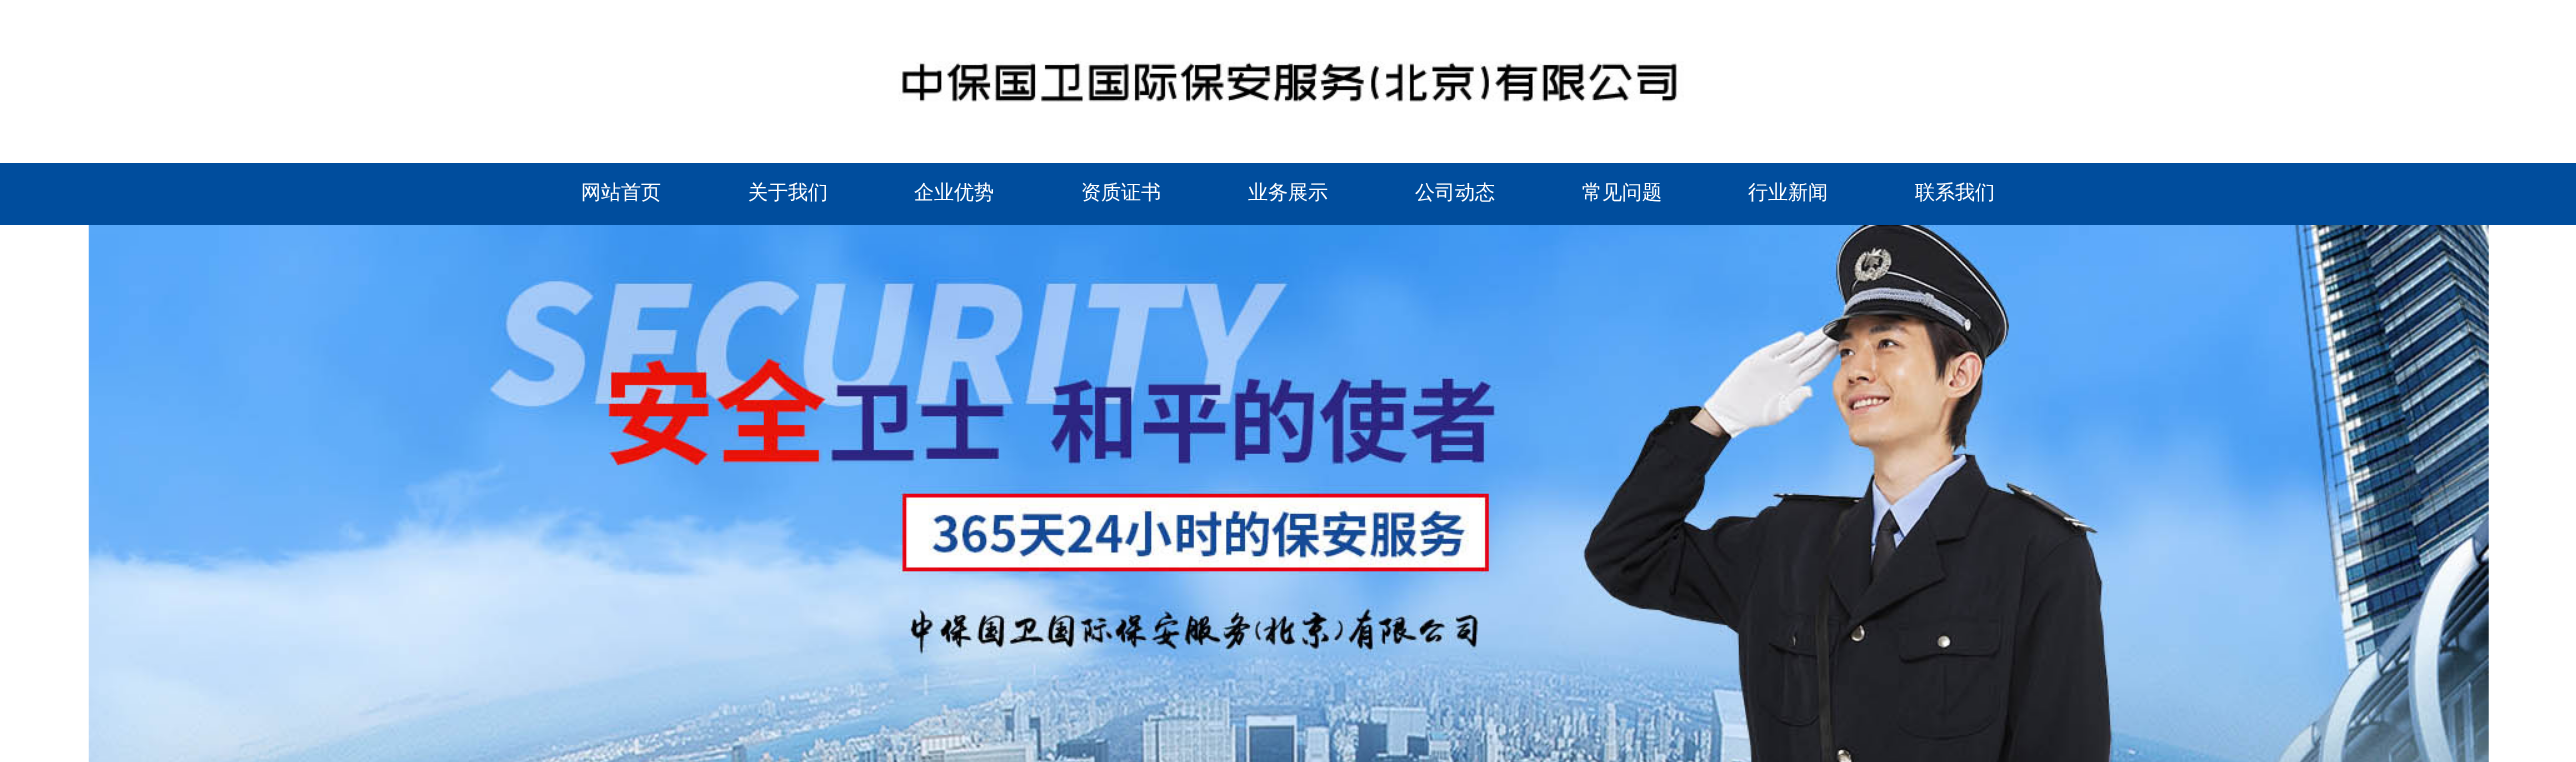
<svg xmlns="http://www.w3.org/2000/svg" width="2576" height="762">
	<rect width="100%" height="100%" fill="#FFFFFF" />
	<image x="898" y="61" width="786" height="41" href="assets/img1.png" />
	<rect x="0" y="163" width="2576" height="62" fill="#004D9D" />
	<g font-family="WenQuanYi Zen Hei" font-size="20" font-weight="500" fill="#FFFFFF">
		<text x="581" y="199">网站首页</text>
		<text x="748" y="199">关于我们</text>
		<text x="914" y="199">企业优势</text>
		<text x="1081" y="199">资质证书</text>
		<text x="1248" y="199">业务展示</text>
		<text x="1415" y="199">公司动态</text>
		<text x="1582" y="199">常见问题</text>
		<text x="1748" y="199">行业新闻</text>
		<text x="1915" y="199">联系我们</text>
	</g>
	<image x="88" y="225" width="2401" height="537" href="assets/img2.png" />
</svg>
